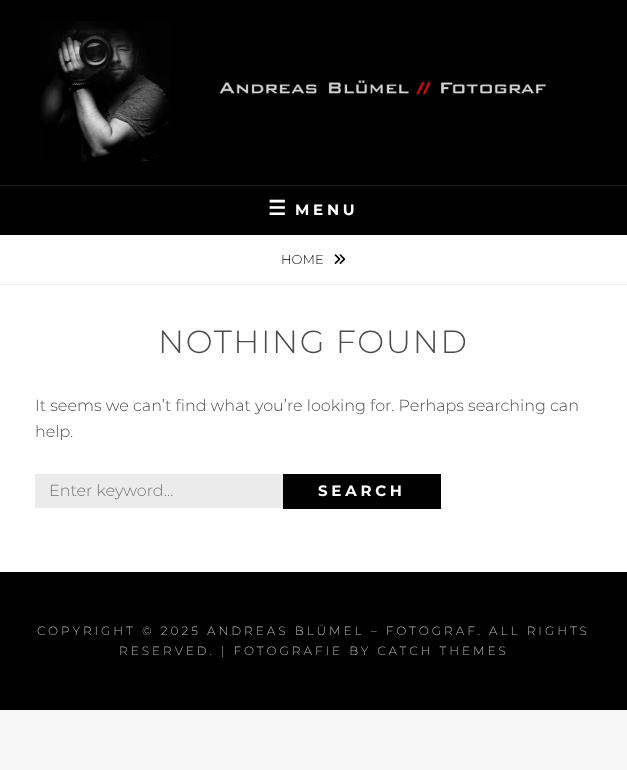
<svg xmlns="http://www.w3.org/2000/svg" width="627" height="770">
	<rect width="100%" height="100%" fill="#F6F6F6" />
	<rect x="0" y="235" width="627" height="337" fill="#FFFFFF" />
	<rect x="0" y="0" width="627" height="235" fill="#000000" />
	<image x="40" y="21" width="507" height="141" href="assets/img1.png" />
	<rect x="0" y="185" width="627" height="1" fill="#1F1F1F" />
	<text x="268" y="215" font-family="DejaVu Sans" font-size="20" font-weight="700" letter-spacing="3.75" fill="#FFFFFF">☰</text>
	<text x="295" y="215" font-family="Montserrat" font-size="15" font-weight="700" letter-spacing="3.75" fill="#FFFFFF">MENU</text>
	<rect x="0" y="284" width="627" height="1" fill="#F2F2F2" />
	<text x="281" y="264" font-family="Montserrat" font-size="13" font-weight="300" fill="#000000">HOME</text>
	<image x="334" y="254" width="12" height="10" href="assets/img2.png" />
	<text x="158" y="353" font-family="Montserrat" font-size="32" font-weight="300" letter-spacing="1.6" fill="#4D4D4D">NOTHING FOUND</text>
	<g font-family="Montserrat" font-size="16" font-weight="300" fill="#4D4D4D">
		<text x="35" y="411">It seems we can’t find what you’re looking for. Perhaps searching can</text>
		<text x="35" y="437">help.</text>
	</g>
	<rect x="35" y="474" width="248" height="34" fill="#EBEBEB" />
	<text x="49" y="496" font-family="Montserrat" font-size="16" font-weight="300" fill="#757575">Enter keyword…</text>
	<rect x="283" y="474" width="158" height="35" fill="#000000" />
	<text x="318" y="496" font-family="Montserrat" font-size="15" font-weight="700" letter-spacing="3.75" fill="#FFFFFF">SEARCH</text>
	<rect x="0" y="572" width="627" height="138" fill="#000000" />
	<g font-family="Montserrat" font-size="12" font-weight="300" letter-spacing="3" fill="#B3B3B3">
		<text x="37" y="635">COPYRIGHT © 2025 ANDREAS BLÜMEL – FOTOGRAF. ALL RIGHTS</text>
		<text x="119" y="655">RESERVED. | FOTOGRAFIE BY CATCH THEMES</text>
	</g>
</svg>
